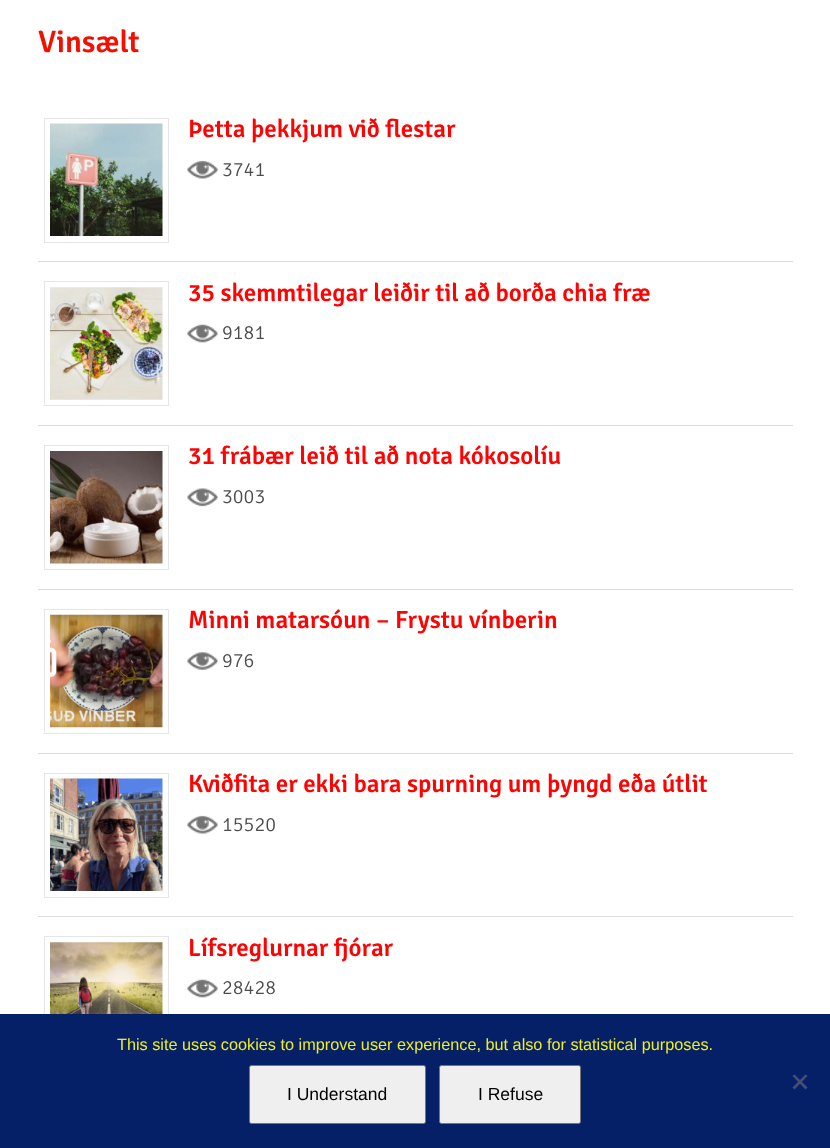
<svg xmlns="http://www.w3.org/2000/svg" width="830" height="1148">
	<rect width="100%" height="100%" fill="#FFFFFF" />
	<text x="38" y="52" font-family="Signika Negative" font-size="31" font-weight="600" fill="#F41000">Vinsælt</text>
	<rect x="38" y="261" width="755" height="1" fill="#DDDDDD" />
	<rect x="44.5" y="118.5" width="124" height="124" fill="none" stroke="#E6E6E6" />
	<image x="50" y="123" width="113" height="113" href="assets/img1.png" />
	<text x="188" y="137" font-family="Signika Negative" font-size="25" font-weight="600" fill="#FF0202">Þetta þekkjum við flestar</text>
	<image x="187" y="160" width="31" height="19" href="assets/img2.png" />
	<text x="222" y="176" font-family="Signika Negative" font-size="20" font-weight="300" fill="#4C4C4C">3741</text>
	<rect x="38" y="425" width="755" height="1" fill="#DDDDDD" />
	<rect x="44.5" y="281.5" width="124" height="124" fill="none" stroke="#E6E6E6" />
	<image x="50" y="287" width="113" height="113" href="assets/img3.png" />
	<text x="188" y="301" font-family="Signika Negative" font-size="25" font-weight="600" fill="#FF0202">35 skemmtilegar leiðir til að borða chia fræ</text>
	<image x="187" y="324" width="31" height="19" href="assets/img4.png" />
	<text x="222" y="339" font-family="Signika Negative" font-size="20" font-weight="300" fill="#4C4C4C">9181</text>
	<rect x="38" y="589" width="755" height="1" fill="#DDDDDD" />
	<rect x="44.5" y="445.5" width="124" height="124" fill="none" stroke="#E6E6E6" />
	<image x="50" y="451" width="113" height="113" href="assets/img5.png" />
	<text x="188" y="464" font-family="Signika Negative" font-size="25" font-weight="600" fill="#FF0202">31 frábær leið til að nota kókosolíu</text>
	<image x="187" y="488" width="31" height="19" href="assets/img6.png" />
	<text x="222" y="503" font-family="Signika Negative" font-size="20" font-weight="300" fill="#4C4C4C">3003</text>
	<rect x="38" y="753" width="755" height="1" fill="#DDDDDD" />
	<rect x="44.5" y="609.5" width="124" height="124" fill="none" stroke="#E6E6E6" />
	<image x="50" y="614" width="113" height="114" href="assets/img7.png" />
	<text x="188" y="628" font-family="Signika Negative" font-size="25" font-weight="600" fill="#FF0202">Minni matarsóun – Frystu vínberin</text>
	<image x="187" y="652" width="31" height="18" href="assets/img8.png" />
	<text x="222" y="667" font-family="Signika Negative" font-size="20" font-weight="300" fill="#4C4C4C">976</text>
	<rect x="38" y="916" width="755" height="1" fill="#DDDDDD" />
	<rect x="44.5" y="773.5" width="124" height="124" fill="none" stroke="#E6E6E6" />
	<image x="50" y="778" width="113" height="113" href="assets/img9.png" />
	<text x="188" y="792" font-family="Signika Negative" font-size="25" font-weight="600" fill="#FF0202">Kviðfita er ekki bara spurning um þyngd eða útlit</text>
	<image x="187" y="815" width="31" height="19" href="assets/img2.png" />
	<text x="222" y="831" font-family="Signika Negative" font-size="20" font-weight="300" fill="#4C4C4C">15520</text>
	<rect x="44.5" y="936.5" width="124" height="124" fill="none" stroke="#E6E6E6" />
	<image x="50" y="942" width="113" height="72" href="assets/img10.png" />
	<text x="188" y="956" font-family="Signika Negative" font-size="25" font-weight="600" fill="#FF0202">Lífsreglurnar fjórar</text>
	<image x="187" y="979" width="31" height="19" href="assets/img4.png" />
	<text x="222" y="994" font-family="Signika Negative" font-size="20" font-weight="300" fill="#4C4C4C">28428</text>
	<rect x="0" y="1014" width="830" height="134" fill="#062068" />
	<text x="117" y="1050" font-family="Liberation Sans" font-size="16.25" fill="#EEEE22">This site uses cookies to improve user experience, but also for statistical purposes.</text>
	<path d="M805.5 1074.5L807.5 1076L794.5 1089.5L792.5 1087.5Z" fill="#435074" />
	<path d="M792.5 1076L794.5 1074.5L807.5 1087.5L805.5 1089.5Z" fill="#435074" />
	<rect x="249.5" y="1065.5" width="176" height="58" rx="2" fill="#EFEFEF" stroke="#767676" />
	<text x="287" y="1100" font-family="Liberation Sans" font-size="17.5" fill="#000000">I Understand</text>
	<rect x="439.5" y="1065.5" width="141" height="58" rx="2" fill="#EFEFEF" stroke="#767676" />
	<text x="478" y="1100" font-family="Liberation Sans" font-size="17.5" fill="#000000">I Refuse</text>
</svg>
